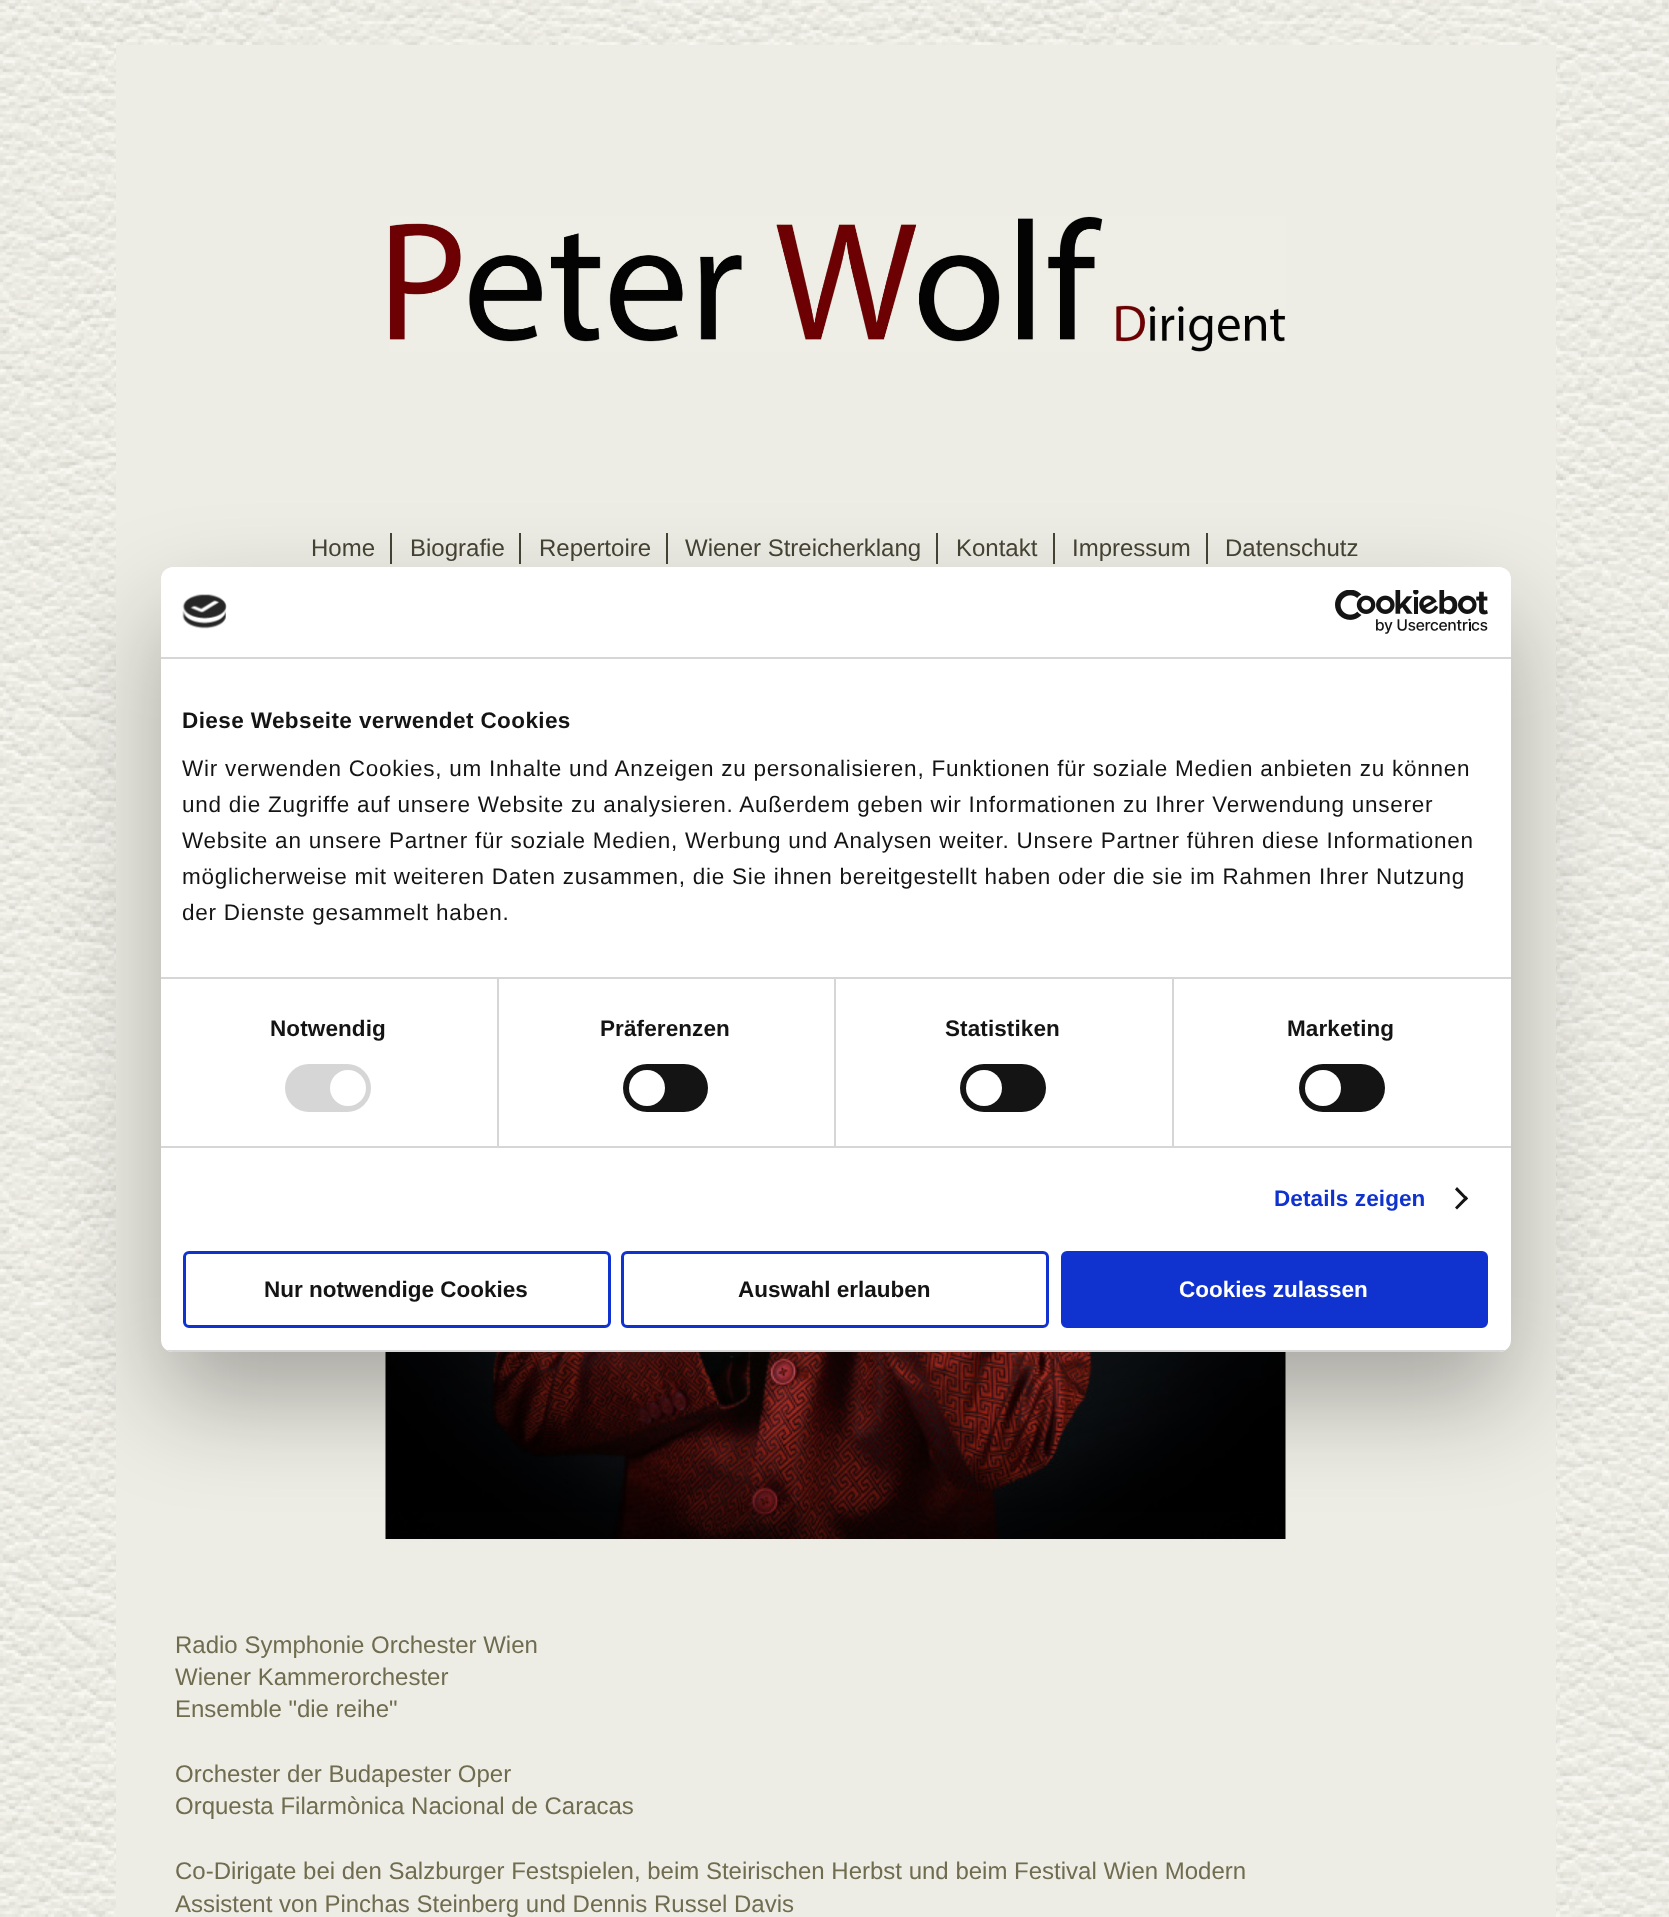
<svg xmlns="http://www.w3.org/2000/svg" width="1669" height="1917">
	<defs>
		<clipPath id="clip1"><rect x="161" y="567" width="1350" height="785" rx="12" /></clipPath>
	</defs>
	<rect width="100%" height="100%" fill="#FFFFFF" />
	<image x="0" y="0" width="1669" height="1917" href="assets/img1.png" />
	<rect x="116" y="45" width="1440" height="1872" fill="#EEEDE5" />
	<image x="389" y="216" width="897" height="136" href="assets/img2.png" />
	<rect x="390" y="533" width="2" height="31" fill="#464435" />
	<text x="311" y="556" font-family="Liberation Sans" font-size="24" fill="#464435">Home</text>
	<rect x="519" y="533" width="2" height="31" fill="#464435" />
	<text x="410" y="556" font-family="Liberation Sans" font-size="24" fill="#464435">Biografie</text>
	<rect x="666" y="533" width="2" height="31" fill="#464435" />
	<text x="539" y="556" font-family="Liberation Sans" font-size="24" fill="#464435">Repertoire</text>
	<rect x="936" y="533" width="2" height="31" fill="#464435" />
	<text x="685" y="556" font-family="Liberation Sans" font-size="24" fill="#464435">Wiener Streicherklang</text>
	<rect x="1053" y="533" width="2" height="31" fill="#464435" />
	<text x="956" y="556" font-family="Liberation Sans" font-size="24" fill="#464435">Kontakt</text>
	<rect x="1206" y="533" width="2" height="31" fill="#464435" />
	<g font-family="Liberation Sans" font-size="24" fill="#464435">
		<text x="1072" y="556">Impressum</text>
		<text x="1225" y="556">Datenschutz</text>
	</g>
	<image x="385" y="1352" width="901" height="187" href="assets/img3.png" />
	<g font-family="Liberation Sans" font-size="24" fill="#6F6C50">
		<text x="175" y="1653">Radio Symphonie Orchester Wien</text>
		<text x="175" y="1685">Wiener Kammerorchester</text>
		<text x="175" y="1717">Ensemble "die reihe"</text>
		<text x="175" y="1782">Orchester der Budapester Oper</text>
		<text x="175" y="1814">Orquesta Filarmònica Nacional de Caracas</text>
		<text x="175" y="1879">Co-Dirigate bei den Salzburger Festspielen, beim Steirischen Herbst und beim Festival Wien Modern</text>
		<text x="175" y="1912">Assistent von Pinchas Steinberg und Dennis Russel Davis</text>
	</g>
	<rect x="161" y="615" width="1350" height="785" rx="12" fill="#000000" fill-opacity="0.3" filter="blur(51px)" />
	<rect x="161" y="567" width="1350" height="785" rx="12" fill="#FFFFFF" />
	<rect x="161" y="657" width="1350" height="2" fill="#D6D6D6" />
	<image x="182" y="594" width="45" height="35" href="assets/img4.png" />
	<image x="1335" y="590" width="153" height="44" href="assets/img5.png" />
	<rect x="497" y="978" width="2" height="168" fill="#D6D6D6" />
	<rect x="834" y="978" width="2" height="168" fill="#D6D6D6" />
	<rect x="1172" y="978" width="2" height="168" fill="#D6D6D6" />
	<rect x="161" y="977" width="1350" height="2" fill="#D6D6D6" />
	<text x="182" y="728" font-family="Liberation Sans" font-size="22.5" font-weight="700" letter-spacing="0.4" fill="#141414">Diese Webseite verwendet Cookies</text>
	<g font-family="Liberation Sans" font-size="22.5" letter-spacing="0.75" fill="#141414">
		<text x="182" y="776">Wir verwenden Cookies, um Inhalte und Anzeigen zu personalisieren, Funktionen für soziale Medien anbieten zu können</text>
		<text x="182" y="812">und die Zugriffe auf unsere Website zu analysieren. Außerdem geben wir Informationen zu Ihrer Verwendung unserer</text>
		<text x="182" y="848">Website an unsere Partner für soziale Medien, Werbung und Analysen weiter. Unsere Partner führen diese Informationen</text>
		<text x="182" y="884">möglicherweise mit weiteren Daten zusammen, die Sie ihnen bereitgestellt haben oder die sie im Rahmen Ihrer Nutzung</text>
		<text x="182" y="920">der Dienste gesammelt haben.</text>
	</g>
	<rect x="161" y="1146" width="1350" height="2" fill="#D6D6D6" />
	<text x="270" y="1036" font-family="Liberation Sans" font-size="22.5" font-weight="700" letter-spacing="0.1" fill="#141414">Notwendig</text>
	<rect x="285" y="1064" width="86" height="48" rx="24" fill="#D6D6D6" />
	<circle cx="348" cy="1088" r="18" fill="#FFFFFF" />
	<text x="600" y="1036" font-family="Liberation Sans" font-size="22.5" font-weight="700" letter-spacing="0.1" fill="#141414">Präferenzen</text>
	<rect x="623" y="1064" width="85" height="48" rx="24" fill="#141414" />
	<circle cx="647" cy="1088" r="18" fill="#FFFFFF" />
	<text x="945" y="1036" font-family="Liberation Sans" font-size="22.5" font-weight="700" letter-spacing="0.1" fill="#141414">Statistiken</text>
	<rect x="960" y="1064" width="86" height="48" rx="24" fill="#141414" />
	<circle cx="984" cy="1088" r="18" fill="#FFFFFF" />
	<text x="1287" y="1036" font-family="Liberation Sans" font-size="22.5" font-weight="700" letter-spacing="0.1" fill="#141414">Marketing</text>
	<rect x="1299" y="1064" width="86" height="48" rx="24" fill="#141414" />
	<circle cx="1323" cy="1088" r="18" fill="#FFFFFF" />
	<text x="1274" y="1206" font-family="Liberation Sans" font-size="22.5" font-weight="700" letter-spacing="0.1" fill="#1032CF">Details zeigen</text>
	<path d="M1457 1187L1468 1198.5L1466 1200.5L1455 1189.5Z" fill="#141414" />
	<path d="M1466 1196L1468 1198.5L1457 1209.5L1455 1207.5Z" fill="#141414" />
	<g clip-path="url(#clip1)">
		<rect x="161" y="1350" width="1350" height="2" fill="#D6D6D6" />
	</g>
	<rect x="184.5" y="1252.5" width="425" height="74" rx="4.5" fill="none" stroke="#1032CF" stroke-width="3" />
	<text x="264" y="1297" font-family="Liberation Sans" font-size="22.5" font-weight="700" fill="#141414">Nur notwendige Cookies</text>
	<rect x="622.5" y="1252.5" width="425" height="74" rx="4.5" fill="none" stroke="#1032CF" stroke-width="3" />
	<text x="738" y="1297" font-family="Liberation Sans" font-size="22.5" font-weight="700" fill="#141414">Auswahl erlauben</text>
	<rect x="1062.5" y="1252.5" width="424" height="74" rx="4.5" fill="#1032CF" stroke="#1032CF" stroke-width="3" />
	<text x="1179" y="1297" font-family="Liberation Sans" font-size="22.5" font-weight="700" fill="#FFFFFF">Cookies zulassen</text>
</svg>
